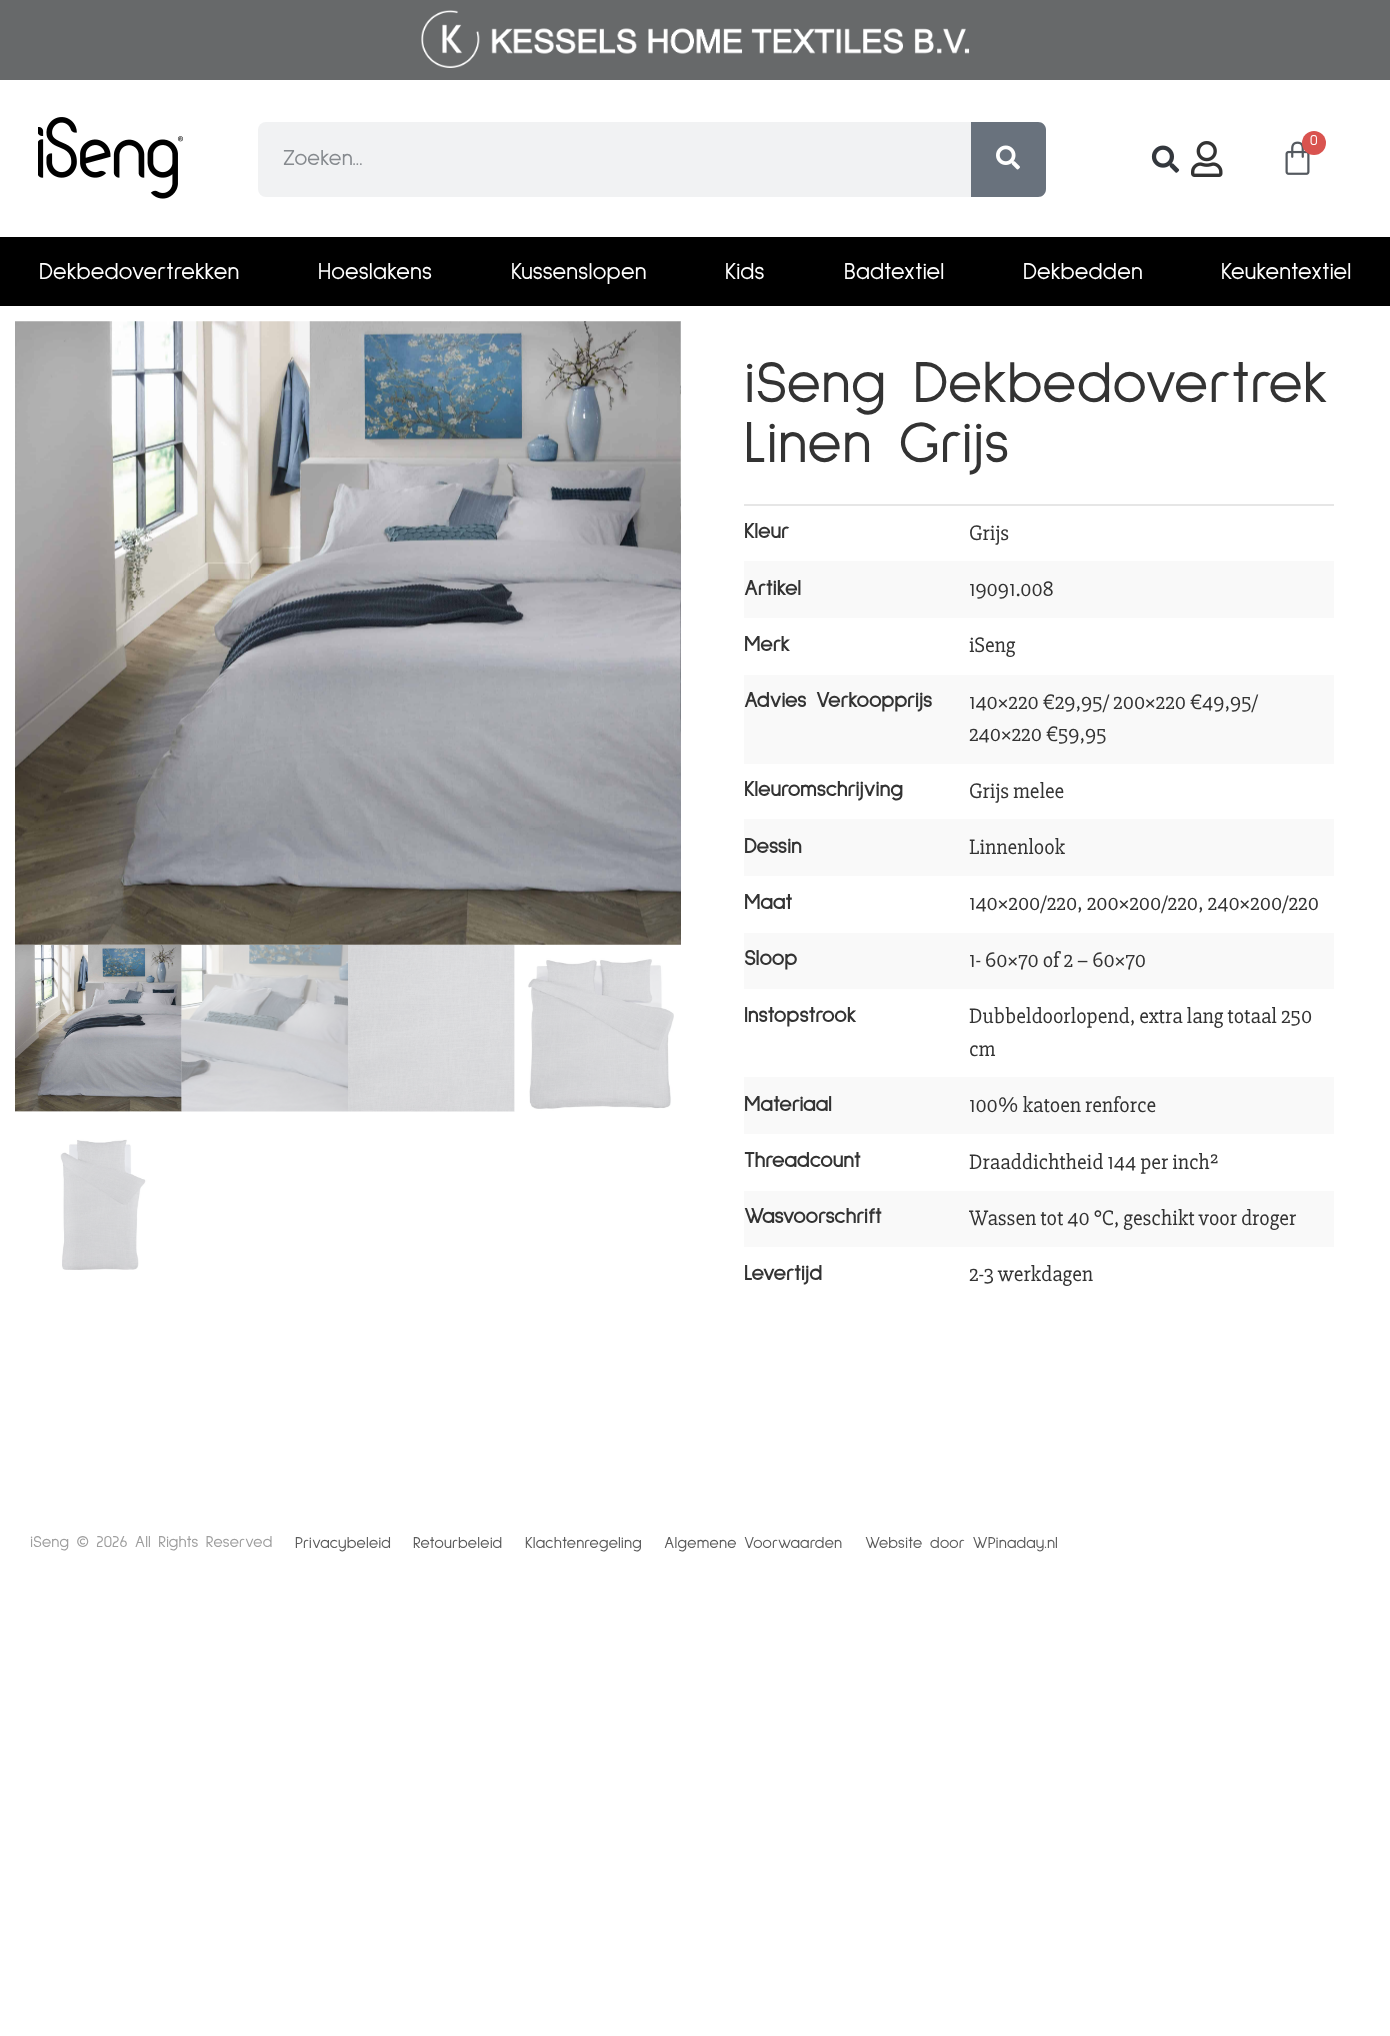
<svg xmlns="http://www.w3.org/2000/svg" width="1390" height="2036">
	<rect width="100%" height="100%" fill="#FFFFFF" />
	<rect x="0" y="0" width="1390" height="80" fill="#67696A" />
	<image x="421" y="10" width="549" height="58" href="assets/img1.png" />
	<image x="38" y="117" width="145" height="82" href="assets/img2.png" />
	<image x="1151" y="145" width="29" height="28" href="assets/img3.png" />
	<image x="1191" y="141" width="32" height="36" href="assets/img4.png" />
	<image x="1285" y="141" width="25" height="34" href="assets/img5.png" />
	<circle cx="1314" cy="143" r="12" fill="#D9534F" />
	<text x="1310" y="145" font-family="Sulphur Point" font-size="15" fill="#FFFFFF">0</text>
	<rect x="258" y="122" width="788" height="75" rx="8" fill="#F1F2F3" />
	<text x="283" y="165" font-family="Sulphur Point" font-size="22.5" fill="#868A8E">Zoeken...</text>
	<path d="M971 122H1038C1042.5 122 1046 125.5 1046 130V189C1046 193.5 1042.5 197 1038 197H971Z" fill="#69727D" />
	<image x="996" y="145" width="24" height="25" href="assets/img6.png" />
	<rect x="0" y="237" width="1390" height="69" fill="#000000" />
	<g font-family="Sulphur Point" font-size="24" fill="#FFFFFF">
		<text x="39" y="279">Dekbedovertrekken</text>
		<text x="318" y="279">Hoeslakens</text>
		<text x="511" y="279">Kussenslopen</text>
		<text x="725" y="279">Kids</text>
		<text x="844" y="279">Badtextiel</text>
		<text x="1023" y="279">Dekbedden</text>
		<text x="1221" y="279">Keukentextiel</text>
	</g>
	<image x="15" y="321" width="666" height="624" href="assets/img7.png" />
	<image x="680" y="321" width="1" height="442" href="assets/img8.png" />
	<image x="15" y="945" width="167" height="167" href="assets/img9.png" />
	<image x="181" y="945" width="167" height="167" href="assets/img10.png" />
	<image x="348" y="945" width="167" height="167" href="assets/img11.png" />
	<image x="514" y="945" width="160" height="166" href="assets/img12.png" />
	<image x="15" y="1111" width="167" height="159" href="assets/img13.png" />
	<g font-family="Sulphur Point" font-size="60" fill="#333333">
		<text x="744" y="402">iSeng Dekbedovertrek</text>
		<text x="744" y="462">Linen Grijs</text>
	</g>
	<rect x="744" y="504" width="590" height="2" fill="#E6E6E6" />
	<text x="744" y="538" font-family="Sulphur Point" font-size="21.6" font-weight="700" fill="#333333">Kleur</text>
	<text x="969" y="540" font-family="'Slabo 27px'" font-size="21.6" fill="#333333">Grijs</text>
	<rect x="744" y="561" width="590" height="57" fill="#F9F9F9" />
	<text x="744" y="595" font-family="Sulphur Point" font-size="21.6" font-weight="700" fill="#333333">Artikel</text>
	<text x="969" y="596" font-family="'Slabo 27px'" font-size="21.6" fill="#333333">19091.008</text>
	<text x="744" y="651" font-family="Sulphur Point" font-size="21.6" font-weight="700" fill="#333333">Merk</text>
	<text x="969" y="652" font-family="'Slabo 27px'" font-size="21.6" fill="#333333">iSeng</text>
	<rect x="744" y="675" width="590" height="89" fill="#F9F9F9" />
	<text x="744" y="707" font-family="Sulphur Point" font-size="21.6" font-weight="700" fill="#333333">Advies Verkoopprijs</text>
	<g font-family="'Slabo 27px'" font-size="21.6" fill="#333333">
		<text x="969" y="709">140×220 €29,95/ 200×220 €49,95/</text>
		<text x="969" y="741">240×220 €59,95</text>
	</g>
	<text x="744" y="796" font-family="Sulphur Point" font-size="21.6" font-weight="700" fill="#333333">Kleuromschrijving</text>
	<text x="969" y="798" font-family="'Slabo 27px'" font-size="21.6" fill="#333333">Grijs melee</text>
	<rect x="744" y="819" width="590" height="57" fill="#F9F9F9" />
	<text x="744" y="853" font-family="Sulphur Point" font-size="21.6" font-weight="700" fill="#333333">Dessin</text>
	<text x="969" y="854" font-family="'Slabo 27px'" font-size="21.6" fill="#333333">Linnenlook</text>
	<text x="744" y="909" font-family="Sulphur Point" font-size="21.6" font-weight="700" fill="#333333">Maat</text>
	<text x="969" y="910" font-family="'Slabo 27px'" font-size="21.6" fill="#333333">140×200/220, 200×200/220, 240×200/220</text>
	<rect x="744" y="933" width="590" height="56" fill="#F9F9F9" />
	<text x="744" y="965" font-family="Sulphur Point" font-size="21.6" font-weight="700" fill="#333333">Sloop</text>
	<text x="969" y="967" font-family="'Slabo 27px'" font-size="21.6" fill="#333333">1- 60×70 of 2 – 60×70</text>
	<text x="744" y="1022" font-family="Sulphur Point" font-size="21.6" font-weight="700" fill="#333333">Instopstrook</text>
	<g font-family="'Slabo 27px'" font-size="21.6" fill="#333333">
		<text x="969" y="1023">Dubbeldoorlopend, extra lang totaal 250</text>
		<text x="969" y="1056">cm</text>
	</g>
	<rect x="744" y="1077" width="590" height="57" fill="#F9F9F9" />
	<text x="744" y="1111" font-family="Sulphur Point" font-size="21.6" font-weight="700" fill="#333333">Materiaal</text>
	<text x="969" y="1112" font-family="'Slabo 27px'" font-size="21.6" fill="#333333">100% katoen renforce</text>
	<text x="744" y="1167" font-family="Sulphur Point" font-size="21.6" font-weight="700" fill="#333333">Threadcount</text>
	<text x="969" y="1169" font-family="'Slabo 27px'" font-size="21.6" fill="#333333">Draaddichtheid 144 per inch²</text>
	<rect x="744" y="1191" width="590" height="56" fill="#F9F9F9" />
	<text x="744" y="1223" font-family="Sulphur Point" font-size="21.6" font-weight="700" fill="#333333">Wasvoorschrift</text>
	<text x="969" y="1225" font-family="'Slabo 27px'" font-size="21.6" fill="#333333">Wassen tot 40 °C, geschikt voor droger</text>
	<text x="744" y="1280" font-family="Sulphur Point" font-size="21.6" font-weight="700" fill="#333333">Levertijd</text>
	<text x="969" y="1281" font-family="'Slabo 27px'" font-size="21.6" fill="#333333">2-3 werkdagen</text>
	<text x="30" y="1547" font-family="Sulphur Point" font-size="16.5" fill="#9E9E9E">iSeng © 2026 All Rights Reserved</text>
	<g font-family="Sulphur Point" font-size="16.5" fill="#5B5B5B">
		<text x="295" y="1548">Privacybeleid</text>
		<text x="413" y="1548">Retourbeleid</text>
		<text x="525" y="1548">Klachtenregeling</text>
		<text x="664" y="1548">Algemene Voorwaarden</text>
		<text x="865" y="1548">Website door WPinaday.nl</text>
	</g>
</svg>
